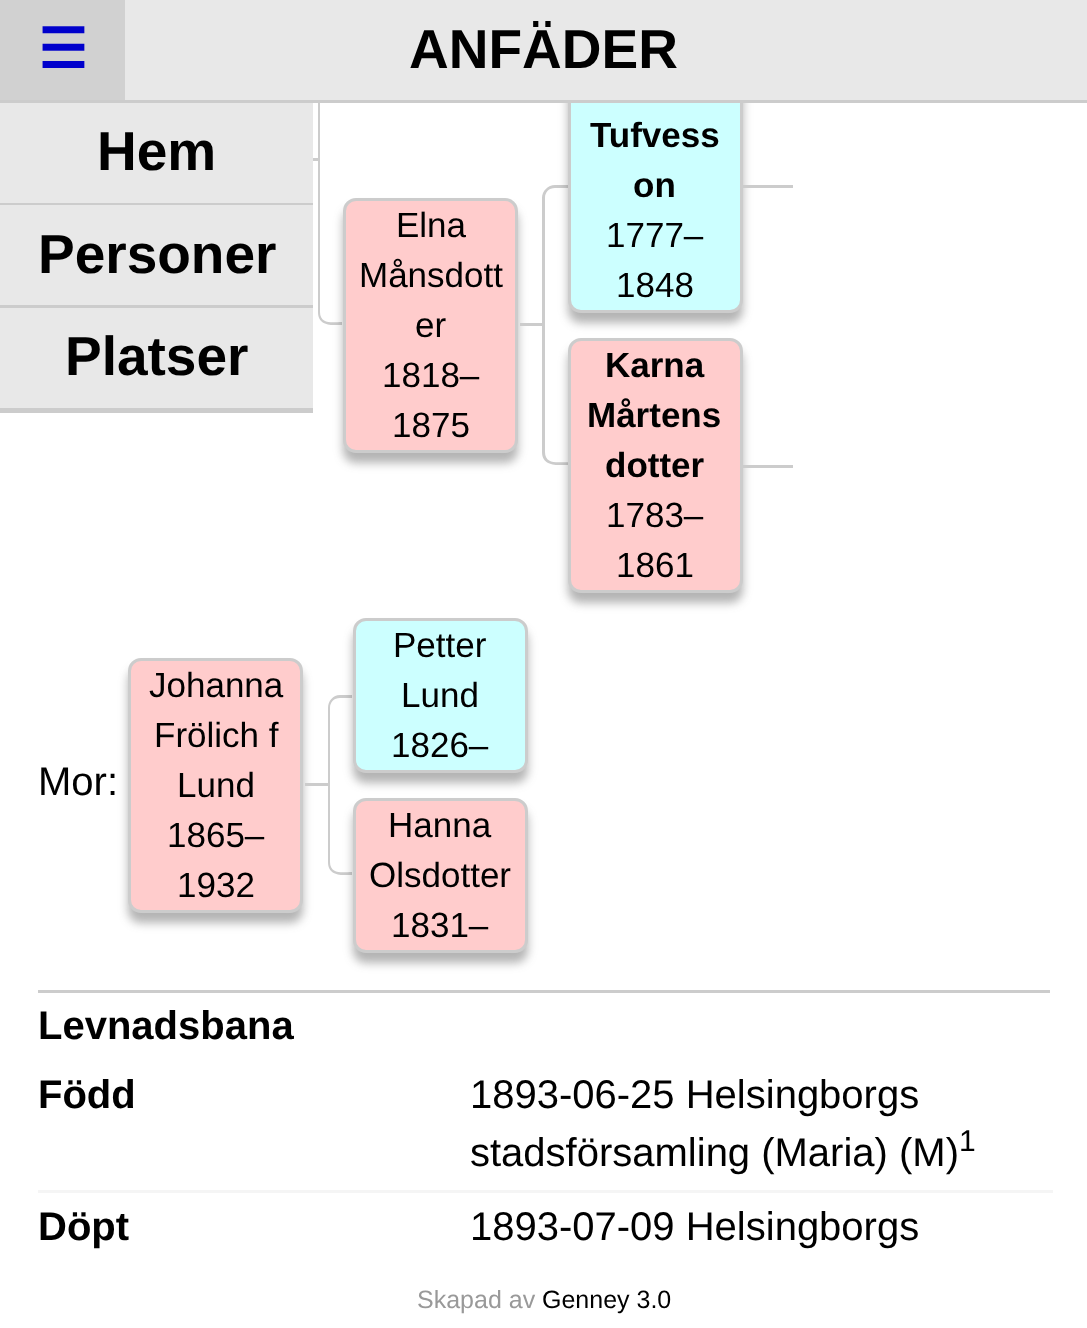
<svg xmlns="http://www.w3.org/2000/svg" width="1087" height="1328">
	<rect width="100%" height="100%" fill="#FFFFFF" />
	<rect x="313" y="158" width="7" height="3" fill="#CCCCCC" />
	<path d="M318 45H342V325C333 325 318 327 318 312ZM320 45H342V322C334 322 320 325 320 312Z" fill="#CCCCCC" fill-rule="evenodd" />
	<rect x="343" y="208" width="175" height="255" rx="13" fill="#434343" fill-opacity="0.4" filter="blur(5px)" />
	<rect x="520" y="323" width="25" height="3" fill="#CCCCCC" />
	<path d="M555 185H568V352H542V198C542 191 548 185 555 185ZM555 188H568V352H545V198C545 192 549 188 555 188Z" fill="#CCCCCC" fill-rule="evenodd" />
	<rect x="568" y="68" width="175" height="255" rx="13" fill="#434343" fill-opacity="0.4" filter="blur(5px)" />
	<rect x="569.5" y="59.5" width="172" height="252" rx="11.5" fill="#CCFFFF" stroke="#CCCCCC" stroke-width="3" />
	<rect x="125" y="0" width="962" height="100" fill="#E8E8E8" />
	<rect x="0" y="100" width="1087" height="3" fill="#CCCCCC" />
	<rect x="0" y="0" width="125" height="100" fill="#D1D1D1" />
	<text x="38" y="68" font-family="DejaVu Sans" font-size="55" font-weight="700" fill="#0000CC">☰</text>
	<rect x="0" y="103" width="313" height="305" fill="#E8E8E8" />
	<rect x="0" y="408" width="313" height="5" fill="#CCCCCC" />
	<rect x="0" y="203" width="313" height="2" fill="#CCCCCC" />
	<text x="97" y="170" font-family="Liberation Sans" font-size="55" font-weight="700" fill="#000000">Hem</text>
	<rect x="0" y="305" width="313" height="3" fill="#CCCCCC" />
	<g font-family="Liberation Sans" font-size="55" font-weight="700" fill="#000000">
		<text x="38" y="273">Personer</text>
		<text x="65" y="375">Platser</text>
		<text x="409" y="68">ANFÄDER</text>
	</g>
	<rect x="344.5" y="199.5" width="172" height="252" rx="11.5" fill="#FFCCCC" stroke="#CCCCCC" stroke-width="3" />
	<g font-family="Liberation Sans" font-size="35" fill="#000000">
		<text x="396" y="237">Elna</text>
		<text x="359" y="287">Månsdott</text>
		<text x="415" y="337">er</text>
		<text x="382" y="387">1818–</text>
		<text x="392" y="437">1875</text>
	</g>
	<g font-family="Liberation Sans" font-size="35" font-weight="700" fill="#000000">
		<text x="590" y="147">Tufvess</text>
		<text x="633" y="197">on</text>
	</g>
	<g font-family="Liberation Sans" font-size="35" fill="#000000">
		<text x="606" y="247">1777–</text>
		<text x="616" y="297">1848</text>
	</g>
	<rect x="743" y="185" width="50" height="3" fill="#CCCCCC" />
	<path d="M542 325H568V465C558 465 542 467 542 452ZM545 325H568V462C559 462 545 465 545 452Z" fill="#CCCCCC" fill-rule="evenodd" />
	<rect x="568" y="348" width="175" height="255" rx="13" fill="#434343" fill-opacity="0.4" filter="blur(5px)" />
	<rect x="569.5" y="339.5" width="172" height="252" rx="11.5" fill="#FFCCCC" stroke="#CCCCCC" stroke-width="3" />
	<g font-family="Liberation Sans" font-size="35" font-weight="700" fill="#000000">
		<text x="605" y="377">Karna</text>
		<text x="587" y="427">Mårtens</text>
		<text x="605" y="477">dotter</text>
	</g>
	<g font-family="Liberation Sans" font-size="35" fill="#000000">
		<text x="606" y="527">1783–</text>
		<text x="616" y="577">1861</text>
	</g>
	<rect x="743" y="465" width="50" height="3" fill="#CCCCCC" />
	<text x="38" y="795" font-family="Liberation Sans" font-size="40" fill="#000000">Mor:</text>
	<rect x="128" y="668" width="175" height="255" rx="13" fill="#434343" fill-opacity="0.4" filter="blur(5px)" />
	<rect x="129.5" y="659.5" width="172" height="252" rx="11.5" fill="#FFCCCC" stroke="#CCCCCC" stroke-width="3" />
	<g font-family="Liberation Sans" font-size="35" fill="#000000">
		<text x="149" y="697">Johanna</text>
		<text x="154" y="747">Frölich f</text>
		<text x="177" y="797">Lund</text>
		<text x="167" y="847">1865–</text>
		<text x="177" y="897">1932</text>
	</g>
	<rect x="305" y="783" width="25" height="3" fill="#CCCCCC" />
	<path d="M340 695H352V802H328V708C328 701 333 695 340 695ZM340 698H352V802H330V708C330 702 334 698 340 698Z" fill="#CCCCCC" fill-rule="evenodd" />
	<rect x="353" y="628" width="175" height="155" rx="13" fill="#434343" fill-opacity="0.4" filter="blur(5px)" />
	<rect x="354.5" y="619.5" width="172" height="152" rx="11.5" fill="#CCFFFF" stroke="#CCCCCC" stroke-width="3" />
	<g font-family="Liberation Sans" font-size="35" fill="#000000">
		<text x="393" y="657">Petter</text>
		<text x="401" y="707">Lund</text>
		<text x="391" y="757">1826–</text>
	</g>
	<path d="M328 785H352V875C343 875 328 877 328 862ZM330 785H352V872C344 872 330 875 330 862Z" fill="#CCCCCC" fill-rule="evenodd" />
	<rect x="353" y="808" width="175" height="155" rx="13" fill="#434343" fill-opacity="0.4" filter="blur(5px)" />
	<rect x="354.5" y="799.5" width="172" height="152" rx="11.5" fill="#FFCCCC" stroke="#CCCCCC" stroke-width="3" />
	<g font-family="Liberation Sans" font-size="35" fill="#000000">
		<text x="388" y="837">Hanna</text>
		<text x="369" y="887">Olsdotter</text>
		<text x="391" y="937">1831–</text>
	</g>
	<rect x="38" y="990" width="1012" height="3" fill="#CCCCCC" />
	<g font-family="Liberation Sans" font-size="40" font-weight="700" fill="#000000">
		<text x="38" y="1039">Levnadsbana</text>
		<text x="38" y="1108">Född</text>
	</g>
	<g font-family="Liberation Sans" font-size="40" fill="#000000">
		<text x="470" y="1108">1893-06-25 Helsingborgs</text>
		<text x="470" y="1166">stadsförsamling (Maria) (M)</text>
	</g>
	<text x="959" y="1151" font-family="Liberation Sans" font-size="30" fill="#000000">1</text>
	<rect x="38" y="1190" width="1015" height="3" fill="#F5F5F5" />
	<text x="38" y="1240" font-family="Liberation Sans" font-size="40" font-weight="700" fill="#000000">Döpt</text>
	<text x="470" y="1240" font-family="Liberation Sans" font-size="40" fill="#000000">1893-07-09 Helsingborgs</text>
	<text x="417" y="1308" font-family="Liberation Sans" font-size="25" fill="#999999">Skapad av</text>
	<text x="542" y="1308" font-family="Liberation Sans" font-size="25" fill="#000000">Genney 3.0</text>
</svg>
